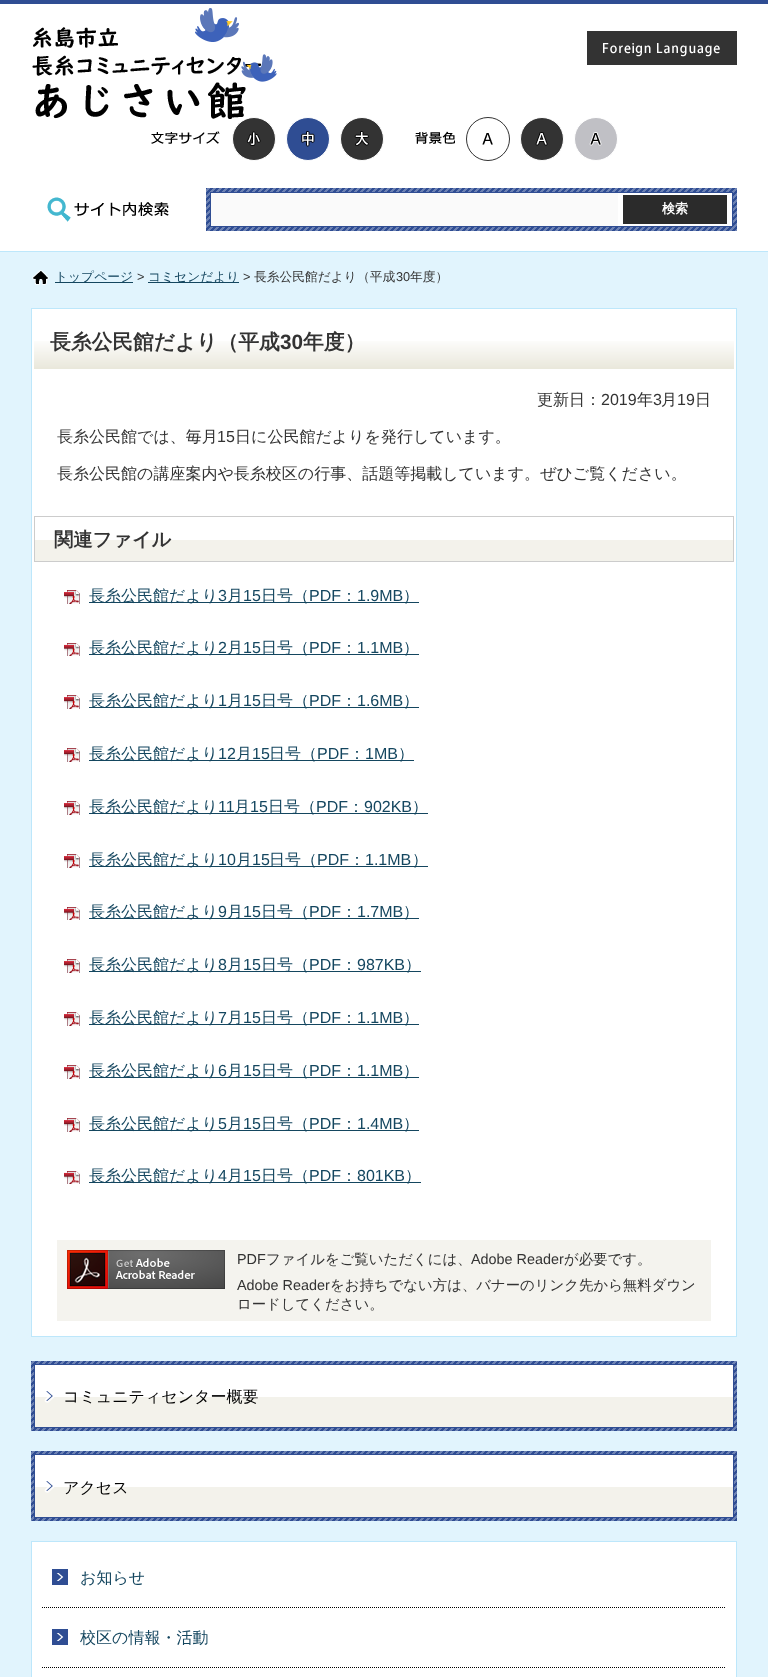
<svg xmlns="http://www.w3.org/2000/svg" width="768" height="1677">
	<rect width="100%" height="100%" fill="#E1F4FD" />
	<rect x="0" y="4" width="768" height="247" fill="#FFFFFF" />
	<rect x="0" y="0" width="768" height="4" fill="#2F4D93" />
	<rect x="0" y="251" width="768" height="1" fill="#BDE7FB" />
	<image x="195" y="8" width="44" height="34" href="assets/img1.png" />
	<image x="33" y="27" width="85" height="21" href="assets/img2.png" />
	<image x="32" y="55" width="229" height="64" href="assets/img3.png" />
	<image x="241" y="54" width="36" height="28" href="assets/img4.png" />
	<rect x="587" y="31" width="150" height="34" fill="#333333" />
	<image x="603" y="43" width="117" height="14" href="assets/img5.png" />
	<image x="151" y="131" width="69" height="13" href="assets/img6.png" />
	<circle cx="254" cy="139" r="21.5" fill="#333333" stroke="#FFFFFF" />
	<image x="246" y="131" width="15" height="15" href="assets/img7.png" />
	<circle cx="308" cy="139" r="21.5" fill="#2F4D93" stroke="#FFFFFF" />
	<image x="301" y="131" width="14" height="16" href="assets/img8.png" />
	<circle cx="362" cy="139" r="21.5" fill="#333333" stroke="#FFFFFF" />
	<image x="354" y="131" width="15" height="15" href="assets/img9.png" />
	<image x="415" y="131" width="40" height="13" href="assets/img10.png" />
	<circle cx="488" cy="139" r="21.5" fill="none" stroke="#333333" />
	<image x="482" y="133" width="11" height="12" href="assets/img11.png" />
	<circle cx="542" cy="139" r="21.5" fill="#333333" stroke="#FFFFFF" />
	<image x="535" y="132" width="13" height="14" href="assets/img12.png" />
	<circle cx="596" cy="139" r="21.5" fill="#C0C0C5" stroke="#FFFFFF" />
	<image x="589" y="132" width="13" height="14" href="assets/img13.png" />
	<image x="47" y="197" width="122" height="25" href="assets/img14.png" />
	<rect x="206" y="188" width="531" height="43" fill="#2F4D93" />
	<image x="206" y="188" width="531" height="43" href="assets/img15.png" />
	<rect x="618" y="193" width="114" height="33" fill="#FFFFFF" />
	<rect x="210.5" y="192.5" width="522" height="34" fill="none" stroke="#2F4D93" />
	<rect x="211" y="193" width="407" height="33" fill="#FAFAFA" />
	<rect x="623" y="195" width="104" height="29" fill="#2B2B2B" />
	<text x="662" y="213" font-family="WenQuanYi Zen Hei" font-size="13" font-weight="700" fill="#FFFFFF">検索</text>
	<image x="32" y="270" width="17" height="15" href="assets/img16.png" />
	<rect x="55" y="282" width="78" height="1" fill="#14465F" />
	<text x="55" y="281" font-family="WenQuanYi Zen Hei" font-size="12.75" font-weight="500" fill="#14465F">トップページ</text>
	<text x="137" y="281" font-family="Liberation Sans" font-size="12.75" fill="#333333">&gt;</text>
	<rect x="148" y="282" width="91" height="1" fill="#14465F" />
	<text x="148" y="281" font-family="WenQuanYi Zen Hei" font-size="12.75" font-weight="500" fill="#14465F">コミセンだより</text>
	<text x="243" y="281" font-family="Liberation Sans" font-size="12.75" fill="#333333">&gt;</text>
	<text x="254" y="281" font-family="WenQuanYi Zen Hei" font-size="12.75" font-weight="500" fill="#333333">長糸公民館だより（平成</text>
	<text x="396" y="281" font-family="Liberation Sans" font-size="12.75" fill="#333333">30</text>
	<text x="410" y="281" font-family="WenQuanYi Zen Hei" font-size="12.75" font-weight="500" fill="#333333">年度）</text>
	<rect x="31.5" y="308.5" width="705" height="1028" fill="#FFFFFF" stroke="#BDE7FB" />
	<image x="34" y="341" width="700" height="28" href="assets/img17.png" />
	<text x="50" y="349" font-family="WenQuanYi Zen Hei" font-size="20.75" font-weight="700" fill="#333333">長糸公民館だより（平成</text>
	<text x="280" y="349" font-family="Liberation Sans" font-size="20.75" font-weight="700" fill="#333333">30</text>
	<text x="303" y="349" font-family="WenQuanYi Zen Hei" font-size="20.75" font-weight="700" fill="#333333">年度）</text>
	<text x="537" y="405" font-family="WenQuanYi Zen Hei" font-size="16" font-weight="500" fill="#333333">更新日：</text>
	<text x="601" y="405" font-family="Liberation Sans" font-size="16" fill="#333333">2019</text>
	<text x="637" y="405" font-family="WenQuanYi Zen Hei" font-size="16" font-weight="500" fill="#333333">年</text>
	<text x="653" y="405" font-family="Liberation Sans" font-size="16" fill="#333333">3</text>
	<text x="661" y="405" font-family="WenQuanYi Zen Hei" font-size="16" font-weight="500" fill="#333333">月</text>
	<text x="677" y="405" font-family="Liberation Sans" font-size="16" fill="#333333">19</text>
	<g font-family="WenQuanYi Zen Hei" font-size="16" font-weight="500" fill="#333333">
		<text x="695" y="405">日</text>
		<text x="57" y="442">長糸公民館では、毎月</text>
	</g>
	<text x="217" y="442" font-family="Liberation Sans" font-size="16" fill="#333333">15</text>
	<g font-family="WenQuanYi Zen Hei" font-size="16" font-weight="500" fill="#333333">
		<text x="235" y="442">日に公民館だよりを発行しています。</text>
		<text x="57" y="479">長糸公民館の講座案内や長糸校区の行事、話題等掲載しています。ぜひご覧ください。</text>
	</g>
	<rect x="35" y="540" width="698" height="21" fill="#F3F2EB" />
	<rect x="34.5" y="516.5" width="699" height="45" fill="none" stroke="#CCCCCC" />
	<text x="54" y="546" font-family="WenQuanYi Zen Hei" font-size="19.25" font-weight="700" fill="#333333">関連ファイル</text>
	<image x="64" y="590" width="16" height="14" href="assets/img18.png" />
	<rect x="89" y="602" width="330" height="1" fill="#14465F" />
	<text x="89" y="601" font-family="WenQuanYi Zen Hei" font-size="16" font-weight="500" fill="#14465F">長糸公民館だより</text>
	<text x="218" y="601" font-family="Liberation Sans" font-size="16" fill="#14465F">3</text>
	<text x="227" y="601" font-family="WenQuanYi Zen Hei" font-size="16" font-weight="500" fill="#14465F">月</text>
	<text x="243" y="601" font-family="Liberation Sans" font-size="16" fill="#14465F">15</text>
	<text x="261" y="601" font-family="WenQuanYi Zen Hei" font-size="16" font-weight="500" fill="#14465F">日号（</text>
	<text x="309" y="601" font-family="Liberation Sans" font-size="16" fill="#14465F">PDF</text>
	<text x="341" y="601" font-family="WenQuanYi Zen Hei" font-size="16" font-weight="500" fill="#14465F">：</text>
	<text x="357" y="601" font-family="Liberation Sans" font-size="16" fill="#14465F">1.9MB</text>
	<text x="403" y="601" font-family="WenQuanYi Zen Hei" font-size="16" font-weight="500" fill="#14465F">）</text>
	<image x="64" y="643" width="16" height="13" href="assets/img19.png" />
	<rect x="89" y="654" width="330" height="1" fill="#14465F" />
	<text x="89" y="653" font-family="WenQuanYi Zen Hei" font-size="16" font-weight="500" fill="#14465F">長糸公民館だより</text>
	<text x="218" y="653" font-family="Liberation Sans" font-size="16" fill="#14465F">2</text>
	<text x="227" y="653" font-family="WenQuanYi Zen Hei" font-size="16" font-weight="500" fill="#14465F">月</text>
	<text x="243" y="653" font-family="Liberation Sans" font-size="16" fill="#14465F">15</text>
	<text x="261" y="653" font-family="WenQuanYi Zen Hei" font-size="16" font-weight="500" fill="#14465F">日号（</text>
	<text x="309" y="653" font-family="Liberation Sans" font-size="16" fill="#14465F">PDF</text>
	<text x="341" y="653" font-family="WenQuanYi Zen Hei" font-size="16" font-weight="500" fill="#14465F">：</text>
	<text x="357" y="653" font-family="Liberation Sans" font-size="16" fill="#14465F">1.1MB</text>
	<text x="403" y="653" font-family="WenQuanYi Zen Hei" font-size="16" font-weight="500" fill="#14465F">）</text>
	<image x="64" y="695" width="16" height="14" href="assets/img18.png" />
	<rect x="89" y="707" width="330" height="1" fill="#14465F" />
	<text x="89" y="706" font-family="WenQuanYi Zen Hei" font-size="16" font-weight="500" fill="#14465F">長糸公民館だより</text>
	<text x="218" y="706" font-family="Liberation Sans" font-size="16" fill="#14465F">1</text>
	<text x="227" y="706" font-family="WenQuanYi Zen Hei" font-size="16" font-weight="500" fill="#14465F">月</text>
	<text x="243" y="706" font-family="Liberation Sans" font-size="16" fill="#14465F">15</text>
	<text x="261" y="706" font-family="WenQuanYi Zen Hei" font-size="16" font-weight="500" fill="#14465F">日号（</text>
	<text x="309" y="706" font-family="Liberation Sans" font-size="16" fill="#14465F">PDF</text>
	<text x="341" y="706" font-family="WenQuanYi Zen Hei" font-size="16" font-weight="500" fill="#14465F">：</text>
	<text x="357" y="706" font-family="Liberation Sans" font-size="16" fill="#14465F">1.6MB</text>
	<text x="403" y="706" font-family="WenQuanYi Zen Hei" font-size="16" font-weight="500" fill="#14465F">）</text>
	<image x="64" y="748" width="16" height="14" href="assets/img18.png" />
	<rect x="89" y="760" width="325" height="1" fill="#14465F" />
	<text x="89" y="759" font-family="WenQuanYi Zen Hei" font-size="16" font-weight="500" fill="#14465F">長糸公民館だより</text>
	<text x="218" y="759" font-family="Liberation Sans" font-size="16" fill="#14465F">12</text>
	<text x="236" y="759" font-family="WenQuanYi Zen Hei" font-size="16" font-weight="500" fill="#14465F">月</text>
	<text x="252" y="759" font-family="Liberation Sans" font-size="16" fill="#14465F">15</text>
	<text x="269" y="759" font-family="WenQuanYi Zen Hei" font-size="16" font-weight="500" fill="#14465F">日号（</text>
	<text x="317" y="759" font-family="Liberation Sans" font-size="16" fill="#14465F">PDF</text>
	<text x="349" y="759" font-family="WenQuanYi Zen Hei" font-size="16" font-weight="500" fill="#14465F">：</text>
	<text x="365" y="759" font-family="Liberation Sans" font-size="16" fill="#14465F">1MB</text>
	<text x="398" y="759" font-family="WenQuanYi Zen Hei" font-size="16" font-weight="500" fill="#14465F">）</text>
	<image x="64" y="801" width="16" height="14" href="assets/img18.png" />
	<rect x="89" y="813" width="339" height="1" fill="#14465F" />
	<text x="89" y="812" font-family="WenQuanYi Zen Hei" font-size="16" font-weight="500" fill="#14465F">長糸公民館だより</text>
	<text x="218" y="812" font-family="Liberation Sans" font-size="16" fill="#14465F">11</text>
	<text x="234" y="812" font-family="WenQuanYi Zen Hei" font-size="16" font-weight="500" fill="#14465F">月</text>
	<text x="250" y="812" font-family="Liberation Sans" font-size="16" fill="#14465F">15</text>
	<text x="268" y="812" font-family="WenQuanYi Zen Hei" font-size="16" font-weight="500" fill="#14465F">日号（</text>
	<text x="316" y="812" font-family="Liberation Sans" font-size="16" fill="#14465F">PDF</text>
	<text x="348" y="812" font-family="WenQuanYi Zen Hei" font-size="16" font-weight="500" fill="#14465F">：</text>
	<text x="364" y="812" font-family="Liberation Sans" font-size="16" fill="#14465F">902KB</text>
	<text x="412" y="812" font-family="WenQuanYi Zen Hei" font-size="16" font-weight="500" fill="#14465F">）</text>
	<image x="64" y="854" width="16" height="14" href="assets/img18.png" />
	<rect x="89" y="866" width="339" height="1" fill="#14465F" />
	<text x="89" y="865" font-family="WenQuanYi Zen Hei" font-size="16" font-weight="500" fill="#14465F">長糸公民館だより</text>
	<text x="218" y="865" font-family="Liberation Sans" font-size="16" fill="#14465F">10</text>
	<text x="236" y="865" font-family="WenQuanYi Zen Hei" font-size="16" font-weight="500" fill="#14465F">月</text>
	<text x="252" y="865" font-family="Liberation Sans" font-size="16" fill="#14465F">15</text>
	<text x="269" y="865" font-family="WenQuanYi Zen Hei" font-size="16" font-weight="500" fill="#14465F">日号（</text>
	<text x="317" y="865" font-family="Liberation Sans" font-size="16" fill="#14465F">PDF</text>
	<text x="349" y="865" font-family="WenQuanYi Zen Hei" font-size="16" font-weight="500" fill="#14465F">：</text>
	<text x="365" y="865" font-family="Liberation Sans" font-size="16" fill="#14465F">1.1MB</text>
	<text x="412" y="865" font-family="WenQuanYi Zen Hei" font-size="16" font-weight="500" fill="#14465F">）</text>
	<image x="64" y="907" width="16" height="13" href="assets/img19.png" />
	<rect x="89" y="918" width="330" height="1" fill="#14465F" />
	<text x="89" y="917" font-family="WenQuanYi Zen Hei" font-size="16" font-weight="500" fill="#14465F">長糸公民館だより</text>
	<text x="218" y="917" font-family="Liberation Sans" font-size="16" fill="#14465F">9</text>
	<text x="227" y="917" font-family="WenQuanYi Zen Hei" font-size="16" font-weight="500" fill="#14465F">月</text>
	<text x="243" y="917" font-family="Liberation Sans" font-size="16" fill="#14465F">15</text>
	<text x="261" y="917" font-family="WenQuanYi Zen Hei" font-size="16" font-weight="500" fill="#14465F">日号（</text>
	<text x="309" y="917" font-family="Liberation Sans" font-size="16" fill="#14465F">PDF</text>
	<text x="341" y="917" font-family="WenQuanYi Zen Hei" font-size="16" font-weight="500" fill="#14465F">：</text>
	<text x="357" y="917" font-family="Liberation Sans" font-size="16" fill="#14465F">1.7MB</text>
	<text x="403" y="917" font-family="WenQuanYi Zen Hei" font-size="16" font-weight="500" fill="#14465F">）</text>
	<image x="64" y="959" width="16" height="14" href="assets/img18.png" />
	<rect x="89" y="971" width="332" height="1" fill="#14465F" />
	<text x="89" y="970" font-family="WenQuanYi Zen Hei" font-size="16" font-weight="500" fill="#14465F">長糸公民館だより</text>
	<text x="218" y="970" font-family="Liberation Sans" font-size="16" fill="#14465F">8</text>
	<text x="227" y="970" font-family="WenQuanYi Zen Hei" font-size="16" font-weight="500" fill="#14465F">月</text>
	<text x="243" y="970" font-family="Liberation Sans" font-size="16" fill="#14465F">15</text>
	<text x="261" y="970" font-family="WenQuanYi Zen Hei" font-size="16" font-weight="500" fill="#14465F">日号（</text>
	<text x="309" y="970" font-family="Liberation Sans" font-size="16" fill="#14465F">PDF</text>
	<text x="341" y="970" font-family="WenQuanYi Zen Hei" font-size="16" font-weight="500" fill="#14465F">：</text>
	<text x="357" y="970" font-family="Liberation Sans" font-size="16" fill="#14465F">987KB</text>
	<text x="405" y="970" font-family="WenQuanYi Zen Hei" font-size="16" font-weight="500" fill="#14465F">）</text>
	<image x="64" y="1012" width="16" height="14" href="assets/img18.png" />
	<rect x="89" y="1024" width="330" height="1" fill="#14465F" />
	<text x="89" y="1023" font-family="WenQuanYi Zen Hei" font-size="16" font-weight="500" fill="#14465F">長糸公民館だより</text>
	<text x="218" y="1023" font-family="Liberation Sans" font-size="16" fill="#14465F">7</text>
	<text x="227" y="1023" font-family="WenQuanYi Zen Hei" font-size="16" font-weight="500" fill="#14465F">月</text>
	<text x="243" y="1023" font-family="Liberation Sans" font-size="16" fill="#14465F">15</text>
	<text x="261" y="1023" font-family="WenQuanYi Zen Hei" font-size="16" font-weight="500" fill="#14465F">日号（</text>
	<text x="309" y="1023" font-family="Liberation Sans" font-size="16" fill="#14465F">PDF</text>
	<text x="341" y="1023" font-family="WenQuanYi Zen Hei" font-size="16" font-weight="500" fill="#14465F">：</text>
	<text x="357" y="1023" font-family="Liberation Sans" font-size="16" fill="#14465F">1.1MB</text>
	<text x="403" y="1023" font-family="WenQuanYi Zen Hei" font-size="16" font-weight="500" fill="#14465F">）</text>
	<image x="64" y="1065" width="16" height="14" href="assets/img18.png" />
	<rect x="89" y="1077" width="330" height="1" fill="#14465F" />
	<text x="89" y="1076" font-family="WenQuanYi Zen Hei" font-size="16" font-weight="500" fill="#14465F">長糸公民館だより</text>
	<text x="218" y="1076" font-family="Liberation Sans" font-size="16" fill="#14465F">6</text>
	<text x="227" y="1076" font-family="WenQuanYi Zen Hei" font-size="16" font-weight="500" fill="#14465F">月</text>
	<text x="243" y="1076" font-family="Liberation Sans" font-size="16" fill="#14465F">15</text>
	<text x="261" y="1076" font-family="WenQuanYi Zen Hei" font-size="16" font-weight="500" fill="#14465F">日号（</text>
	<text x="309" y="1076" font-family="Liberation Sans" font-size="16" fill="#14465F">PDF</text>
	<text x="341" y="1076" font-family="WenQuanYi Zen Hei" font-size="16" font-weight="500" fill="#14465F">：</text>
	<text x="357" y="1076" font-family="Liberation Sans" font-size="16" fill="#14465F">1.1MB</text>
	<text x="403" y="1076" font-family="WenQuanYi Zen Hei" font-size="16" font-weight="500" fill="#14465F">）</text>
	<image x="64" y="1118" width="16" height="14" href="assets/img18.png" />
	<rect x="89" y="1130" width="330" height="1" fill="#14465F" />
	<text x="89" y="1129" font-family="WenQuanYi Zen Hei" font-size="16" font-weight="500" fill="#14465F">長糸公民館だより</text>
	<text x="218" y="1129" font-family="Liberation Sans" font-size="16" fill="#14465F">5</text>
	<text x="227" y="1129" font-family="WenQuanYi Zen Hei" font-size="16" font-weight="500" fill="#14465F">月</text>
	<text x="243" y="1129" font-family="Liberation Sans" font-size="16" fill="#14465F">15</text>
	<text x="261" y="1129" font-family="WenQuanYi Zen Hei" font-size="16" font-weight="500" fill="#14465F">日号（</text>
	<text x="309" y="1129" font-family="Liberation Sans" font-size="16" fill="#14465F">PDF</text>
	<text x="341" y="1129" font-family="WenQuanYi Zen Hei" font-size="16" font-weight="500" fill="#14465F">：</text>
	<text x="357" y="1129" font-family="Liberation Sans" font-size="16" fill="#14465F">1.4MB</text>
	<text x="403" y="1129" font-family="WenQuanYi Zen Hei" font-size="16" font-weight="500" fill="#14465F">）</text>
	<image x="64" y="1171" width="16" height="13" href="assets/img19.png" />
	<rect x="89" y="1182" width="332" height="1" fill="#14465F" />
	<text x="89" y="1181" font-family="WenQuanYi Zen Hei" font-size="16" font-weight="500" fill="#14465F">長糸公民館だより</text>
	<text x="218" y="1181" font-family="Liberation Sans" font-size="16" fill="#14465F">4</text>
	<text x="227" y="1181" font-family="WenQuanYi Zen Hei" font-size="16" font-weight="500" fill="#14465F">月</text>
	<text x="243" y="1181" font-family="Liberation Sans" font-size="16" fill="#14465F">15</text>
	<text x="261" y="1181" font-family="WenQuanYi Zen Hei" font-size="16" font-weight="500" fill="#14465F">日号（</text>
	<text x="309" y="1181" font-family="Liberation Sans" font-size="16" fill="#14465F">PDF</text>
	<text x="341" y="1181" font-family="WenQuanYi Zen Hei" font-size="16" font-weight="500" fill="#14465F">：</text>
	<text x="357" y="1181" font-family="Liberation Sans" font-size="16" fill="#14465F">801KB</text>
	<text x="405" y="1181" font-family="WenQuanYi Zen Hei" font-size="16" font-weight="500" fill="#14465F">）</text>
	<rect x="57" y="1240" width="654" height="81" fill="#F4F3EE" />
	<image x="67" y="1250" width="158" height="39" href="assets/img20.png" />
	<text x="237" y="1264" font-family="Liberation Sans" font-size="14.4" fill="#333333">PDF</text>
	<text x="266" y="1264" font-family="WenQuanYi Zen Hei" font-size="14.4" font-weight="500" fill="#333333">ファイルをご覧いただくには、</text>
	<text x="471" y="1264" font-family="Liberation Sans" font-size="14.4" fill="#333333">Adobe Reader</text>
	<text x="564" y="1264" font-family="WenQuanYi Zen Hei" font-size="14.4" font-weight="500" fill="#333333">が必要です。</text>
	<text x="237" y="1290" font-family="Liberation Sans" font-size="14.4" fill="#333333">Adobe Reader</text>
	<g font-family="WenQuanYi Zen Hei" font-size="14.4" font-weight="500" fill="#333333">
		<text x="330" y="1290">をお持ちでない方は、バナーのリンク先から無料ダウン</text>
		<text x="237" y="1309">ロードしてください。</text>
	</g>
	<rect x="31" y="1361" width="706" height="70" fill="#2F4D93" />
	<image x="31" y="1361" width="706" height="70" href="assets/img21.png" />
	<rect x="35" y="1365" width="698" height="32" fill="#FFFFFF" />
	<rect x="35" y="1397" width="698" height="30" fill="#F3F2EB" />
	<rect x="34.5" y="1364.5" width="699" height="63" fill="none" stroke="#2F4D93" />
	<image x="44" y="1391" width="10" height="12" href="assets/img22.png" />
	<text x="63" y="1402" font-family="WenQuanYi Zen Hei" font-size="16" font-weight="500" fill="#000000">コミュニティセンター概要</text>
	<rect x="31" y="1451" width="706" height="70" fill="#2F4D93" />
	<image x="31" y="1451" width="706" height="70" href="assets/img21.png" />
	<rect x="35" y="1455" width="698" height="32" fill="#FFFFFF" />
	<rect x="35" y="1487" width="698" height="30" fill="#F3F2EB" />
	<rect x="34.5" y="1454.5" width="699" height="63" fill="none" stroke="#2F4D93" />
	<image x="44" y="1481" width="10" height="12" href="assets/img22.png" />
	<text x="63" y="1493" font-family="WenQuanYi Zen Hei" font-size="16" font-weight="500" fill="#000000">アクセス</text>
	<rect x="31.5" y="1541.5" width="705" height="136" fill="#FFFFFF" stroke="#BDE7FB" />
	<image x="52" y="1569" width="16" height="16" href="assets/img23.png" />
	<text x="80" y="1583" font-family="WenQuanYi Zen Hei" font-size="16" font-weight="500" fill="#14465F">お知らせ</text>
	<path d="M42 1607.5H726" fill="none" stroke="#000000" stroke-dasharray="1 1" />
	<image x="52" y="1629" width="16" height="16" href="assets/img23.png" />
	<text x="80" y="1643" font-family="WenQuanYi Zen Hei" font-size="16" font-weight="500" fill="#14465F">校区の情報・活動</text>
	<path d="M42 1667.5H726" fill="none" stroke="#000000" stroke-dasharray="1 1" />
</svg>
